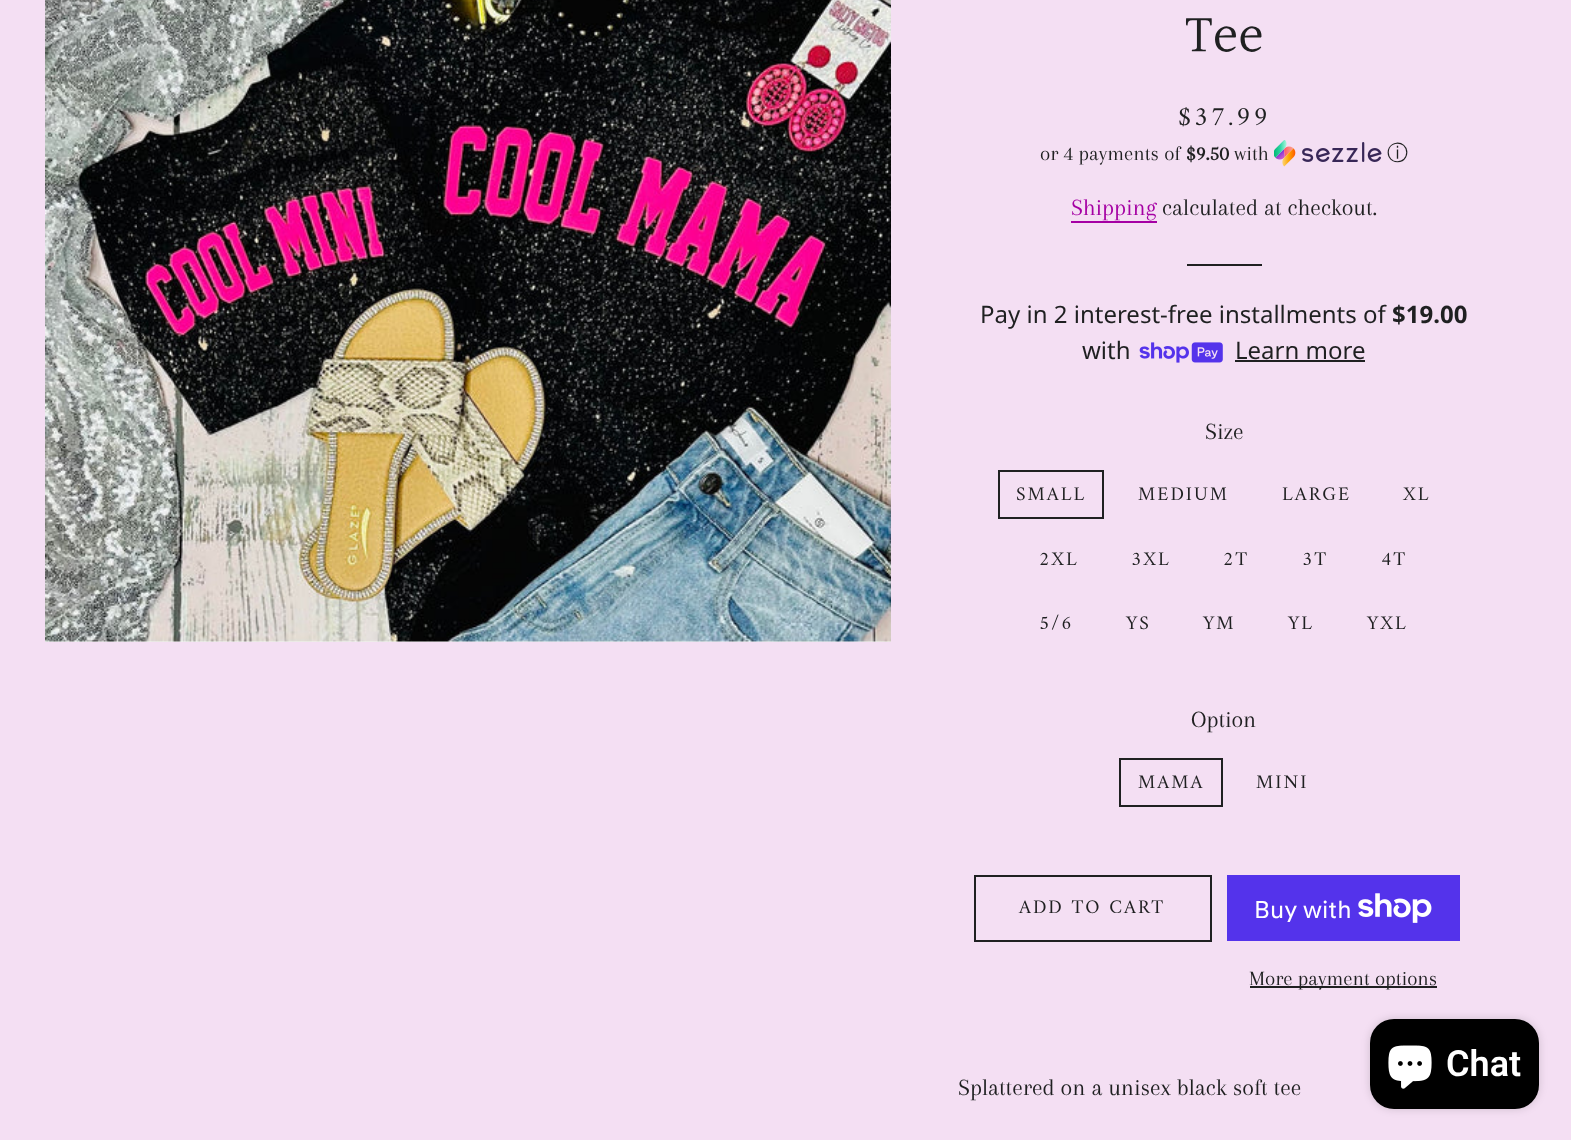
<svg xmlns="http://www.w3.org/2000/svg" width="1571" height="1140">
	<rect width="100%" height="100%" fill="#F4DFF3" />
	<rect x="45" y="641" width="846" height="1" fill="#F6F6F6" />
	<image x="45" y="0" width="846" height="642" href="assets/img1.png" />
	<text x="1185" y="54" font-family="Halant" font-size="54" fill="#1F2021">Tee</text>
	<text x="1178" y="125" font-family="Amiri" font-size="27" letter-spacing="2.75" fill="#1F2021">$37.99</text>
	<text x="1040" y="160" font-family="Arapey" font-size="21" fill="#1F2021">or 4 payments of</text>
	<text x="1186" y="160" font-family="Arapey" font-size="21" font-weight="700" fill="#1F2021">$9.50</text>
	<text x="1234" y="160" font-family="Arapey" font-size="21" fill="#1F2021">with</text>
	<image x="1274" y="140" width="108" height="27" href="assets/img2.png" />
	<text x="1387" y="160" font-family="WenQuanYi Zen Hei" font-size="21" font-weight="500" fill="#1F2021">ⓘ</text>
	<text x="1071" y="215" font-family="Arapey" font-size="24" fill="#A500A3">Shipping</text>
	<rect x="1071" y="221" width="86" height="2" fill="#A500A3" />
	<text x="1162" y="215" font-family="Arapey" font-size="24" fill="#1F2021">calculated at checkout.</text>
	<rect x="1187" y="264" width="75" height="2" fill="#1F2021" />
	<text x="980" y="323" font-family="Noto Sans" font-size="24" fill="#1F2021">Pay in 2 interest-free installments of</text>
	<text x="1392" y="323" font-family="Noto Sans" font-size="24" font-weight="700" fill="#1F2021">$19.00</text>
	<text x="1082" y="359" font-family="Noto Sans" font-size="24" fill="#1F2021">with</text>
	<image x="1139" y="342" width="84" height="21" href="assets/img3.png" />
	<text x="1235" y="359" font-family="Noto Sans" font-size="24" fill="#1F2021">Learn more</text>
	<rect x="1235" y="360" width="130" height="2" fill="#1F2021" />
	<text x="1205" y="439" font-family="Arapey" font-size="24" fill="#1F2021">Size</text>
	<rect x="999" y="471" width="104" height="47" fill="none" stroke="#1F2021" stroke-width="2" />
	<g font-family="Amiri" font-size="19.5" letter-spacing="2" fill="#1F2021">
		<text x="1016" y="500">SMALL</text>
		<text x="1138" y="500">MEDIUM</text>
		<text x="1282" y="500">LARGE</text>
		<text x="1403" y="500">XL</text>
		<text x="1039" y="565">2XL</text>
		<text x="1131" y="565">3XL</text>
		<text x="1223" y="565">2T</text>
		<text x="1302" y="565">3T</text>
		<text x="1381" y="565">4T</text>
		<text x="1039" y="629">5/6</text>
		<text x="1126" y="629">YS</text>
		<text x="1203" y="629">YM</text>
		<text x="1288" y="629">YL</text>
		<text x="1367" y="629">YXL</text>
	</g>
	<text x="1191" y="727" font-family="Arapey" font-size="24" fill="#1F2021">Option</text>
	<rect x="1120" y="759" width="102" height="47" fill="none" stroke="#1F2021" stroke-width="2" />
	<g font-family="Amiri" font-size="19.5" letter-spacing="2" fill="#1F2021">
		<text x="1138" y="788">MAMA</text>
		<text x="1256" y="788">MINI</text>
	</g>
	<rect x="975" y="876" width="236" height="65" fill="none" stroke="#1F2021" stroke-width="2" />
	<text x="1019" y="913" font-family="Amiri" font-size="19.5" letter-spacing="2" fill="#1F2021">ADD TO CART</text>
	<rect x="1227" y="875" width="233" height="66" fill="#5433EB" />
	<text x="1254" y="918" font-family="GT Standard" font-size="24" fill="#FFFFFF">Buy with</text>
	<image x="1358" y="893" width="74" height="30" href="assets/img4.png" />
	<rect x="1250" y="986" width="187" height="2" fill="#1F2021" />
	<text x="1249" y="985" font-family="Arapey" font-size="21" fill="#1F2021">More payment options</text>
	<text x="958" y="1095" font-family="Arapey" font-size="24" fill="#1F2021">Splattered on a unisex black soft tee</text>
	<rect x="1370" y="1019" width="169" height="90" rx="24" fill="#000000" fill-opacity="0.15" filter="blur(4px)" />
	<rect x="1370" y="1019" width="169" height="90" rx="24" fill="#000000" />
	<image x="1388" y="1045" width="44" height="44" href="assets/img5.png" />
	<text x="1446" y="1076" font-family="Roboto" font-size="36" font-weight="600" fill="#FFFFFF">Chat</text>
</svg>
